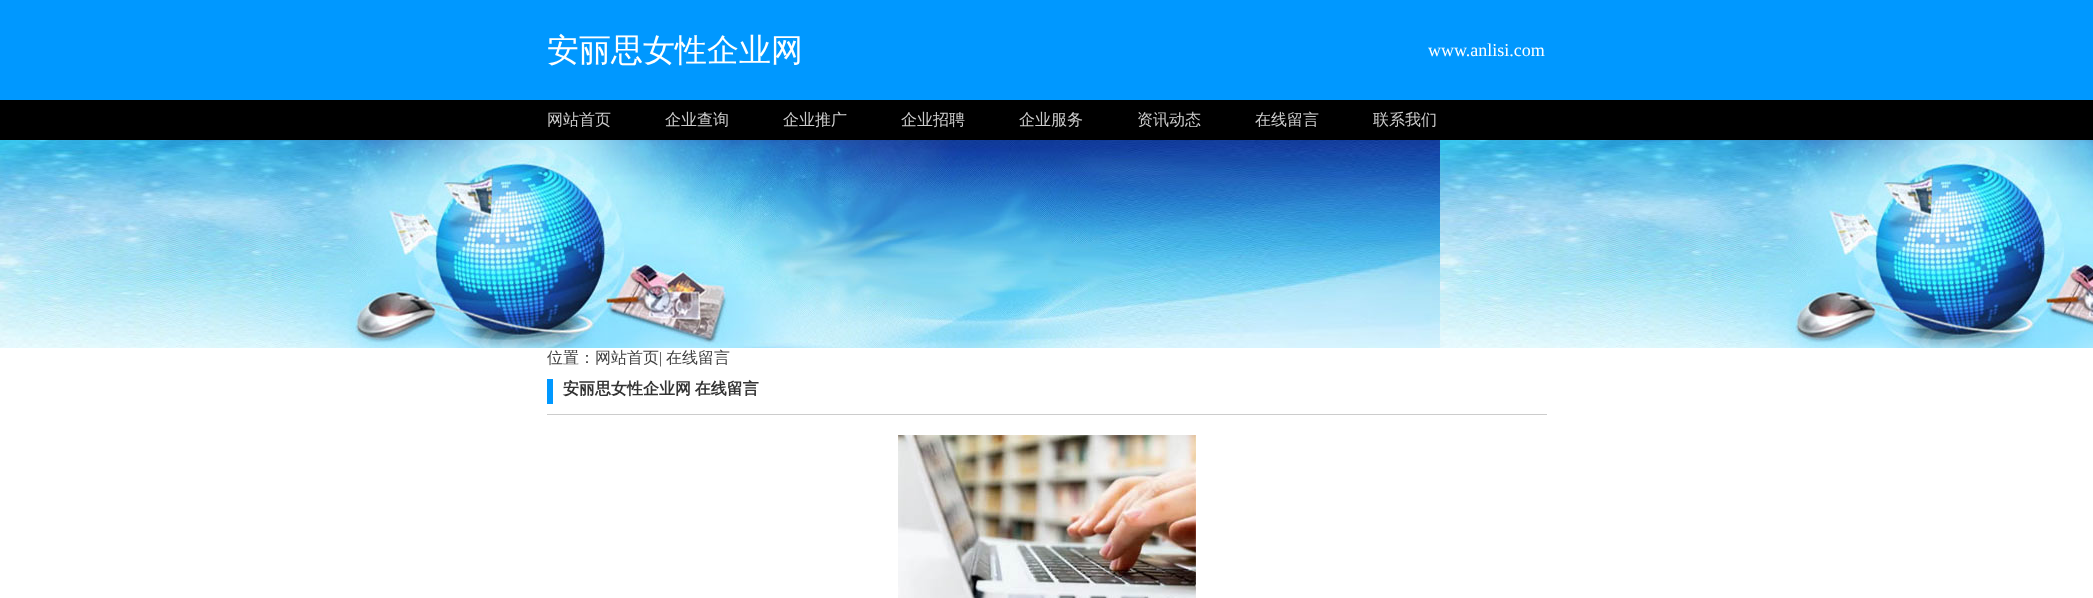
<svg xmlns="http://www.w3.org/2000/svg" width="2093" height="598">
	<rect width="100%" height="100%" fill="#FFFFFF" />
	<rect x="0" y="0" width="2093" height="100" fill="#0098FF" />
	<text x="547" y="61" font-family="WenQuanYi Zen Hei" font-size="32" font-weight="500" fill="#FFFFFF">安丽思女性企业网</text>
	<text x="1428" y="56" font-family="Liberation Serif" font-size="18" fill="#FFFFFF">www.anlisi.com</text>
	<rect x="0" y="100" width="2093" height="40" fill="#000000" />
	<g font-family="WenQuanYi Zen Hei" font-size="16" font-weight="500" fill="#CCCCCC">
		<text x="547" y="125">网站首页</text>
		<text x="665" y="125">企业查询</text>
		<text x="783" y="125">企业推广</text>
		<text x="901" y="125">企业招聘</text>
		<text x="1019" y="125">企业服务</text>
		<text x="1137" y="125">资讯动态</text>
		<text x="1255" y="125">在线留言</text>
		<text x="1373" y="125">联系我们</text>
	</g>
	<image x="0" y="140" width="2093" height="208" href="assets/img1.png" />
	<text x="547" y="363" font-family="WenQuanYi Zen Hei" font-size="16" font-weight="500" fill="#414141">位置：网站首页</text>
	<text x="659" y="363" font-family="Liberation Serif" font-size="16" fill="#414141">|</text>
	<text x="666" y="363" font-family="WenQuanYi Zen Hei" font-size="16" font-weight="500" fill="#414141">在线留言</text>
	<rect x="547" y="414" width="1000" height="1" fill="#CCCCCC" />
	<rect x="547" y="379" width="6" height="25" fill="#0098FF" />
	<text x="563" y="394" word-spacing="-1" font-family="WenQuanYi Zen Hei" font-size="16" font-weight="700" fill="#333333">安丽思女性企业网 在线留言</text>
	<image x="898" y="435" width="298" height="163" href="assets/img2.png" />
</svg>
